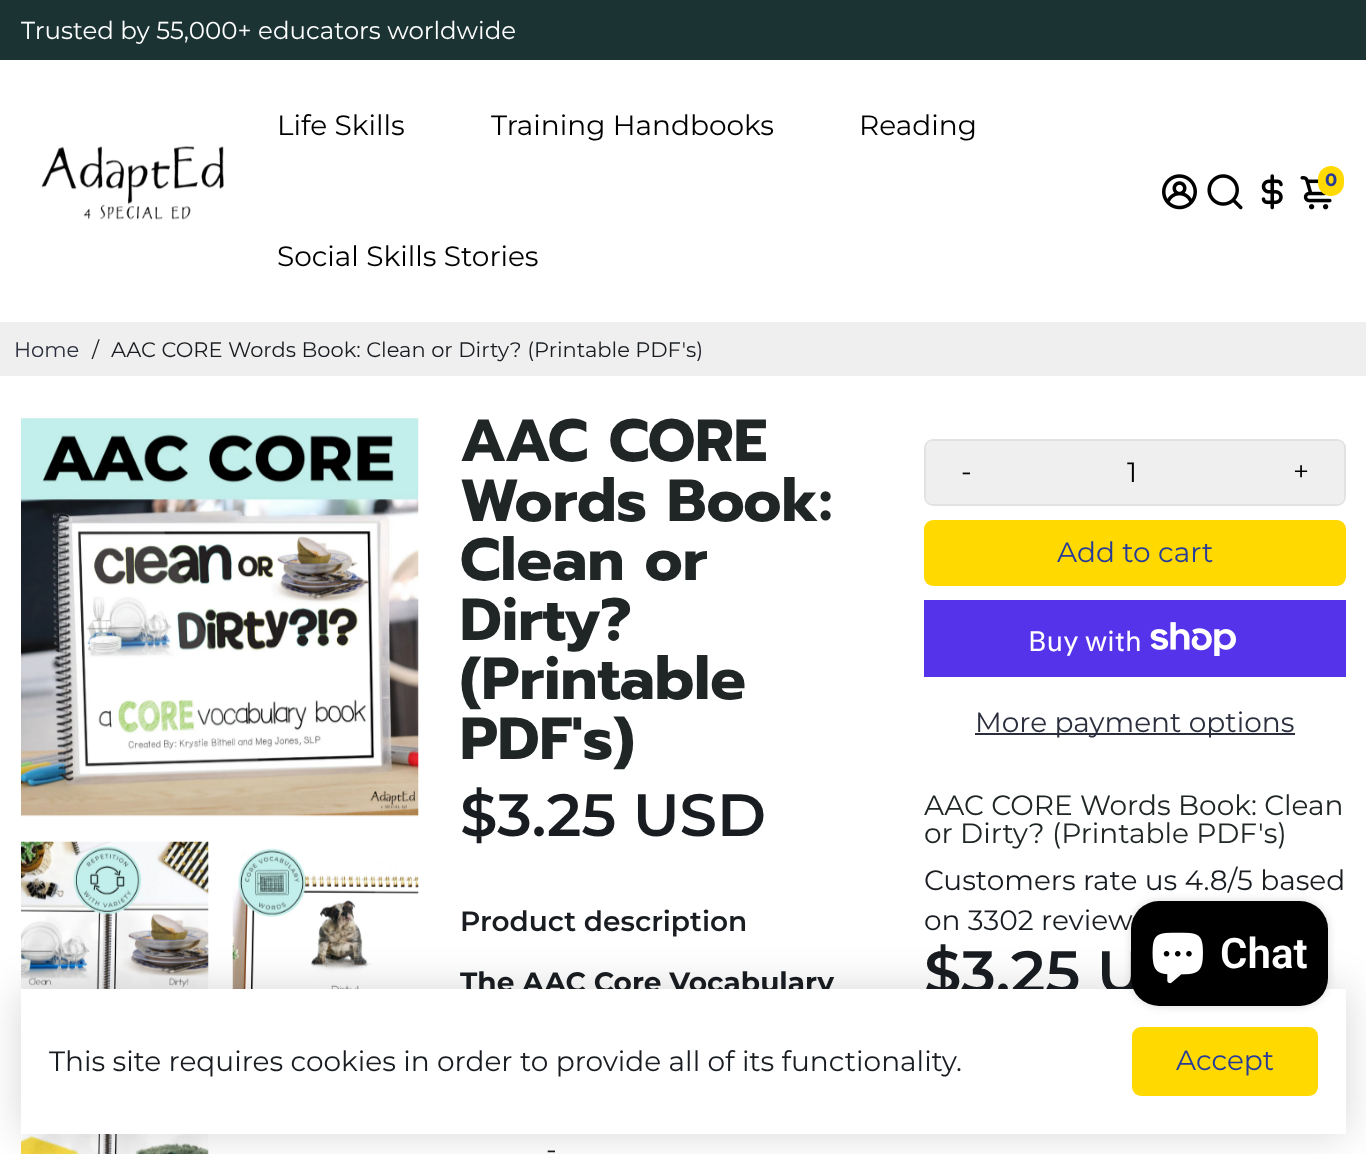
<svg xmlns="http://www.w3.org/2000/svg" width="1366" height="1154">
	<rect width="100%" height="100%" fill="#FFFFFF" />
	<rect x="0" y="0" width="1366" height="60" fill="#1B3333" />
	<text x="21" y="39" font-family="Montserrat" font-size="24.5" fill="#FFFFFF">Trusted by 55,000+ educators worldwide</text>
	<image x="41" y="146" width="183" height="74" href="assets/img1.png" />
	<g font-family="Montserrat" font-size="28" fill="#000000">
		<text x="277" y="135">Life Skills</text>
		<text x="491" y="135">Training Handbooks</text>
		<text x="859" y="135">Reading</text>
		<text x="277" y="266">Social Skills Stories</text>
	</g>
	<image x="1162" y="174" width="35" height="36" href="assets/img2.png" />
	<image x="1207" y="174" width="36" height="36" href="assets/img3.png" />
	<image x="1261" y="174" width="22" height="36" href="assets/img4.png" />
	<image x="1300" y="176" width="32" height="34" href="assets/img5.png" />
	<rect x="1318" y="166" width="26" height="30" rx="13" fill="#FFD900" />
	<text x="1325" y="186" font-family="Montserrat" font-size="18" font-weight="700" fill="#273C99">0</text>
	<rect x="0" y="322" width="1366" height="54" fill="#EFEFEF" />
	<text x="14" y="357" font-family="Montserrat" font-size="21" fill="#2B2F3D">Home</text>
	<g font-family="Montserrat" font-size="21" fill="#191D21">
		<text x="92" y="357">/</text>
		<text x="111" y="357">AAC CORE Words Book: Clean or Dirty? (Printable PDF's)</text>
	</g>
	<image x="21" y="418" width="398" height="399" href="assets/img6.png" />
	<image x="21" y="841" width="188" height="148" href="assets/img7.png" />
	<image x="232" y="848" width="187" height="141" href="assets/img8.png" />
	<image x="21" y="1134" width="188" height="20" href="assets/img9.png" />
	<g font-family="Prompt" font-size="59.5" font-weight="700" fill="#202626">
		<text x="460" y="461">AAC CORE</text>
		<text x="460" y="521">Words Book:</text>
		<text x="460" y="580">Clean or</text>
		<text x="460" y="640">Dirty?</text>
		<text x="460" y="699">(Printable</text>
		<text x="460" y="759">PDF's)</text>
	</g>
	<text x="460" y="836" font-family="Montserrat" font-size="59.5" font-weight="600" fill="#191D21">$3.25 USD</text>
	<text x="460" y="931" font-family="Montserrat" font-size="28" font-weight="600" fill="#191D21">Product description</text>
	<text x="460" y="992" font-family="Montserrat" font-size="28" font-weight="700" fill="#191D21">The AAC Core Vocabulary</text>
	<text x="546" y="1159" font-family="Montserrat" font-size="28" fill="#191D21">-</text>
	<rect x="925" y="440" width="420" height="65" rx="8" fill="none" stroke="#E2E2E2" stroke-width="2" />
	<path d="M933 441H1006V504H933C929 504 926 501 926 497V448C926 444 929 441 933 441Z" fill="#EFEFEF" />
	<text x="961" y="481" font-family="Montserrat" font-size="28" fill="#000000">-</text>
	<rect x="1006" y="441" width="252" height="63" fill="#EFEFEF" />
	<text x="1127" y="482" font-family="Montserrat" font-size="28" fill="#000000">1</text>
	<path d="M1258 441H1337C1341 441 1344 444 1344 448V497C1344 501 1341 504 1337 504H1258Z" fill="#EFEFEF" />
	<text x="1293" y="481" font-family="Montserrat" font-size="28" fill="#000000">+</text>
	<rect x="924" y="520" width="422" height="66" rx="9" fill="#FFD900" />
	<text x="1057" y="562" font-family="Montserrat" font-size="28" fill="#273C99">Add to cart</text>
	<rect x="924" y="600" width="422" height="77" fill="#5433EB" />
	<text x="1028" y="651" font-family="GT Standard" font-size="28" fill="#FFFFFF">Buy with</text>
	<image x="1150" y="622" width="86" height="34" href="assets/img10.png" />
	<rect x="975" y="733" width="320" height="2" fill="#2B2F3D" />
	<text x="975" y="732" font-family="Montserrat" font-size="28" fill="#2B2F3D">More payment options</text>
	<g font-family="Montserrat" font-size="28" fill="#202626">
		<text x="924" y="815">AAC CORE Words Book: Clean</text>
		<text x="924" y="843">or Dirty? (Printable PDF's)</text>
	</g>
	<g font-family="Montserrat" font-size="28" fill="#191D21">
		<text x="924" y="890">Customers rate us 4.8/5 based</text>
		<text x="924" y="930">on 3302 review</text>
	</g>
	<text x="924" y="993" font-family="Montserrat" font-size="59.5" font-weight="600" fill="#191D21">$3.25 U</text>
	<rect x="21" y="989" width="1325" height="145" fill="#000000" fill-opacity="0.16" filter="blur(21px)" />
	<rect x="21" y="989" width="1325" height="145" fill="#FFFFFF" />
	<rect x="1131" y="901" width="197" height="105" rx="28" fill="#000000" fill-opacity="0.15" filter="blur(4.5px)" />
	<rect x="1131" y="901" width="197" height="105" rx="28" fill="#000000" />
	<image x="1152" y="932" width="51" height="52" href="assets/img11.png" />
	<text x="1220" y="968" font-family="Roboto" font-size="42" font-weight="600" fill="#FFFFFF">Chat</text>
	<text x="49" y="1071" font-family="Montserrat" font-size="28" fill="#191D21">This site requires cookies in order to provide all of its functionality.</text>
	<rect x="1132" y="1027" width="186" height="69" rx="9" fill="#FFD900" />
	<text x="1176" y="1070" font-family="Montserrat" font-size="28" fill="#273C99">Accept</text>
</svg>
